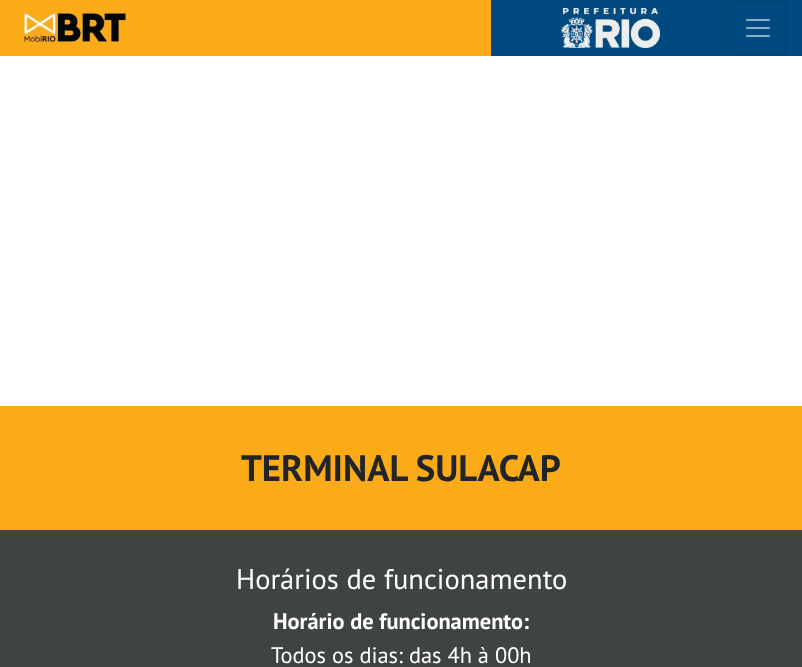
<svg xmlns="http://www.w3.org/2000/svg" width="802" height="667">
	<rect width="100%" height="100%" fill="#3F4443" />
	<rect x="0" y="0" width="491" height="56" fill="#FBAB18" />
	<image x="21" y="10" width="108" height="33" href="assets/img1.png" />
	<rect x="491" y="0" width="311" height="56" fill="#004A80" />
	<image x="561" y="8" width="99" height="40" href="assets/img2.png" />
	<rect x="730.5" y="0.5" width="55" height="55" rx="3.5" fill="none" stroke="#004373" />
	<image x="746" y="19" width="24" height="18" href="assets/img3.png" />
	<rect x="0" y="56" width="802" height="350" fill="#FFFFFF" />
	<rect x="0" y="406" width="802" height="124" fill="#FBAB18" />
	<text x="241" y="481" font-family="PT Sans" font-size="36.75" font-weight="700" fill="#212529">TERMINAL SULACAP</text>
	<text x="236" y="589" font-family="PT Sans" font-size="28.5" fill="#FFFFFF">Horários de funcionamento</text>
	<text x="273" y="629" font-family="PT Sans" font-size="22.4" font-weight="700" fill="#FFFFFF">Horário de funcionamento:</text>
	<text x="271" y="663" font-family="PT Sans" font-size="22.4" fill="#FFFFFF">Todos os dias: das 4h à 00h</text>
</svg>
